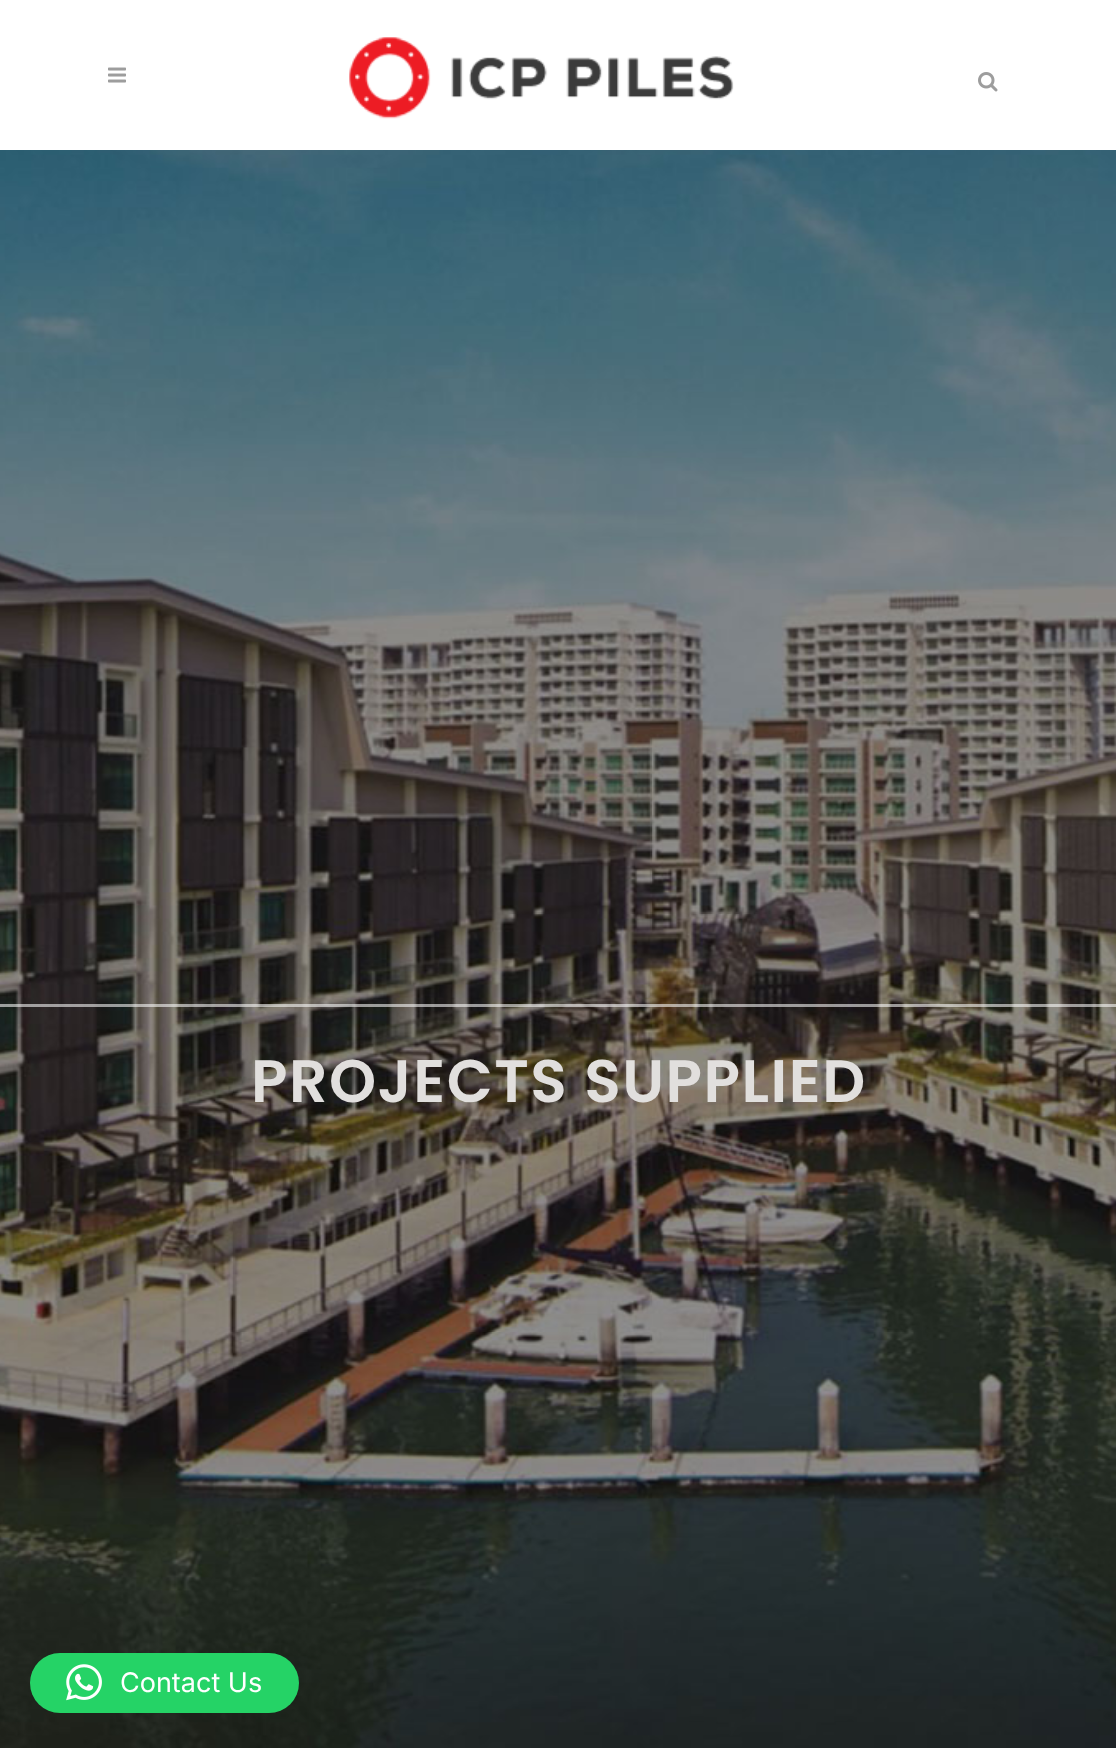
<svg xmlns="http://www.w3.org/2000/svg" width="1116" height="1748">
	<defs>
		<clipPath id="clip1"><rect x="0" y="975" width="1116" height="156" /></clipPath>
	</defs>
	<rect width="100%" height="100%" fill="#FFFFFF" />
	<image x="108" y="67" width="18" height="16" href="assets/img1.png" />
	<image x="349" y="37" width="385" height="82" href="assets/img2.png" />
	<image x="978" y="72" width="20" height="20" href="assets/img3.png" />
	<image x="0" y="150" width="1116" height="1598" href="assets/img4.png" />
	<g clip-path="url(#clip1)">
		<rect x="-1.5" y="1005.5" width="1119" height="153" fill="none" stroke="#FFFFFF" stroke-opacity="0.57" stroke-width="3" />
	</g>
	<text x="251" y="1102" font-family="Poppins" font-size="60" font-weight="600" letter-spacing="1.5" fill="#E1DFDD">PROJECTS SUPPLIED</text>
	<rect x="30" y="1653" width="269" height="60" rx="30" fill="#25D366" />
	<image x="66" y="1664" width="36" height="37" href="assets/img5.png" />
	<text x="120" y="1692" font-family="Inter" font-size="27" fill="#FFFFFF">Contact Us</text>
</svg>
